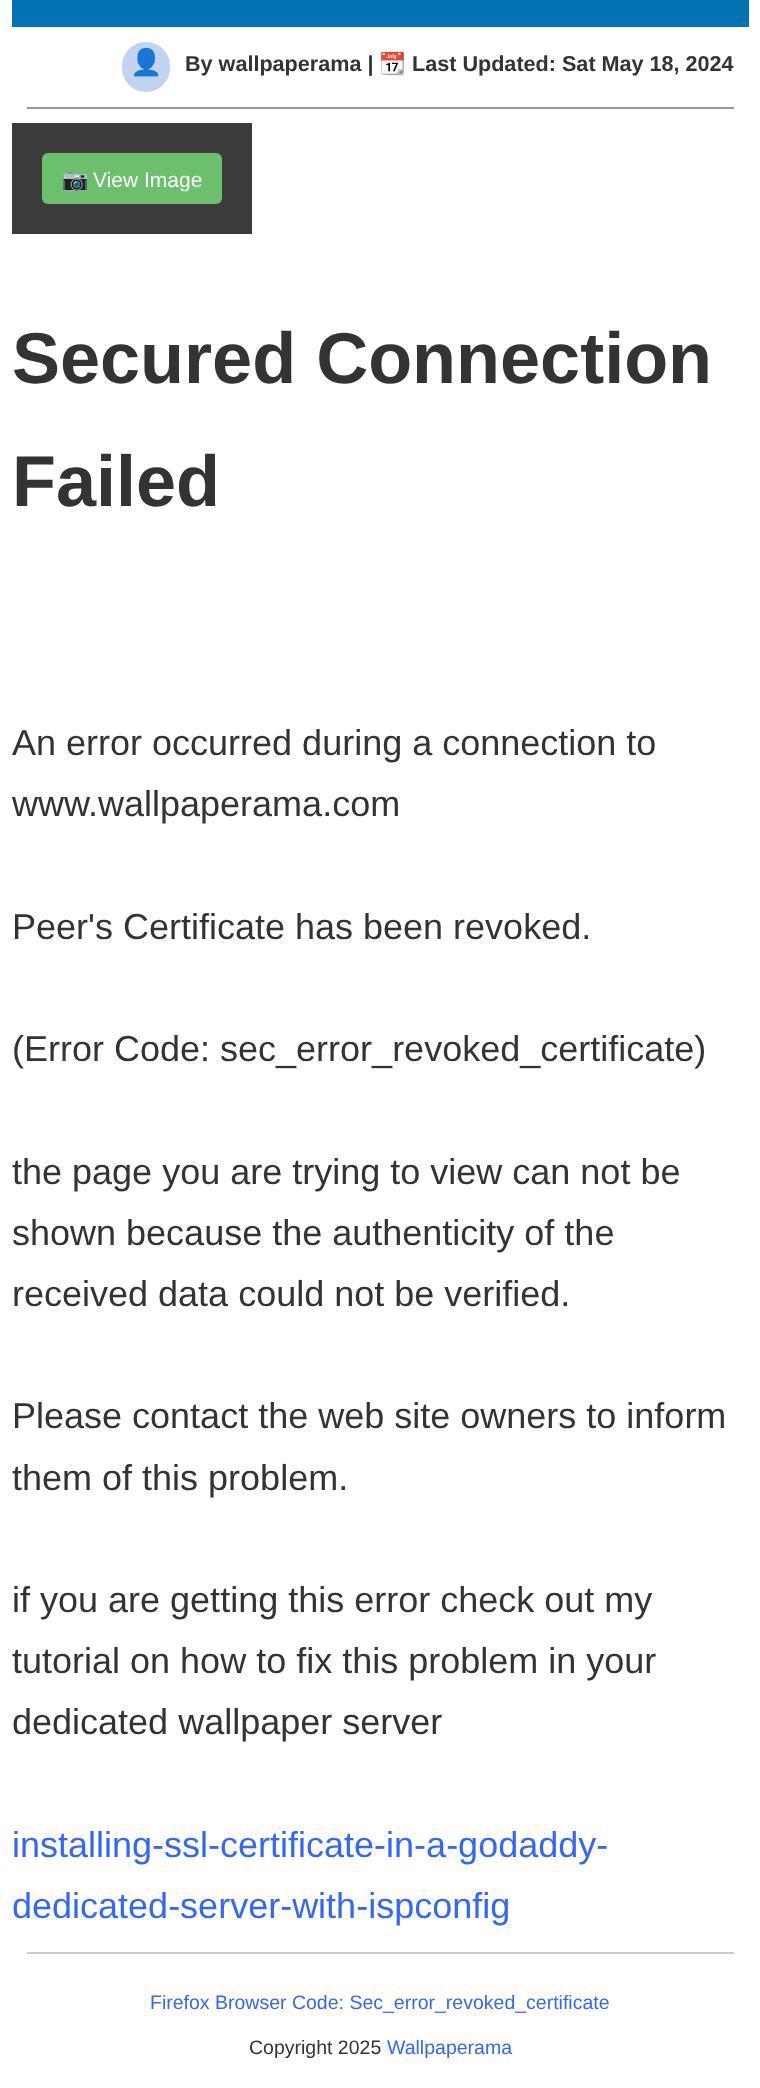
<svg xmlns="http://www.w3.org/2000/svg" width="760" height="2088">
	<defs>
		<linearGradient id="g1" gradientUnits="userSpaceOnUse" x1="12" y1="-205" x2="12" y2="27"><stop offset="0" stop-color="#015483" /><stop offset="1" stop-color="#0274B6" /></linearGradient>
	</defs>
	<rect width="100%" height="100%" fill="#FFFFFF" />
	<rect x="12" y="0" width="737" height="27" fill="url(#g1)" />
	<rect x="27" y="107" width="707" height="2" fill="#999999" />
	<rect x="122" y="42" width="48" height="50" rx="24" fill="#C0D3F2" />
	<text x="130" y="71" font-family="Noto Color Emoji" font-size="26" font-weight="700" fill="#333333">👤</text>
	<text x="185" y="71" font-family="Liberation Sans" font-size="21.6" font-weight="700" fill="#333333">By wallpaperama |</text>
	<text x="379" y="71" font-family="Noto Color Emoji" font-size="21.6" font-weight="700" fill="#333333">📆</text>
	<text x="412" y="71" font-family="Liberation Sans" font-size="21.6" font-weight="700" fill="#333333">Last Updated: Sat May 18, 2024</text>
	<rect x="12" y="123" width="240" height="111" fill="#3B3B3B" />
	<rect x="42" y="153" width="180" height="51" rx="6" fill="#6CBF6C" />
	<text x="62" y="187" font-family="Noto Color Emoji" font-size="21" fill="#FFFFFF">📷</text>
	<text x="93" y="187" font-family="Liberation Sans" font-size="21" fill="#FFFFFF">View Image</text>
	<g font-family="Liberation Sans" font-size="72" font-weight="700" fill="#333333">
		<text x="12" y="383">Secured Connection</text>
		<text x="12" y="506">Failed</text>
	</g>
	<g font-family="Liberation Sans" font-size="36" fill="#333333">
		<text x="12" y="755">An error occurred during a connection to</text>
		<text x="12" y="816">www.wallpaperama.com</text>
		<text x="12" y="939">Peer's Certificate has been revoked.</text>
		<text x="12" y="1061">(Error Code: sec_error_revoked_certificate)</text>
		<text x="12" y="1184">the page you are trying to view can not be</text>
		<text x="12" y="1245">shown because the authenticity of the</text>
		<text x="12" y="1306">received data could not be verified.</text>
		<text x="12" y="1428">Please contact the web site owners to inform</text>
		<text x="12" y="1490">them of this problem.</text>
		<text x="12" y="1612">if you are getting this error check out my</text>
		<text x="12" y="1673">tutorial on how to fix this problem in your</text>
		<text x="12" y="1734">dedicated wallpaper server</text>
	</g>
	<g font-family="Liberation Sans" font-size="36" fill="#3366FF">
		<text x="12" y="1857">installing-ssl-certificate-in-a-godaddy-</text>
		<text x="12" y="1918">dedicated-server-with-ispconfig</text>
	</g>
	<rect x="27" y="1952" width="707" height="2" fill="#CCCCCC" />
	<text x="150" y="2009" font-family="Liberation Sans" font-size="19.5" fill="#3366FF">Firefox Browser Code: Sec_error_revoked_certificate</text>
	<text x="249" y="2054" font-family="Liberation Sans" font-size="19.5" fill="#333333">Copyright 2025</text>
	<text x="387" y="2054" font-family="Liberation Sans" font-size="19.5" fill="#3366FF">Wallpaperama</text>
</svg>
